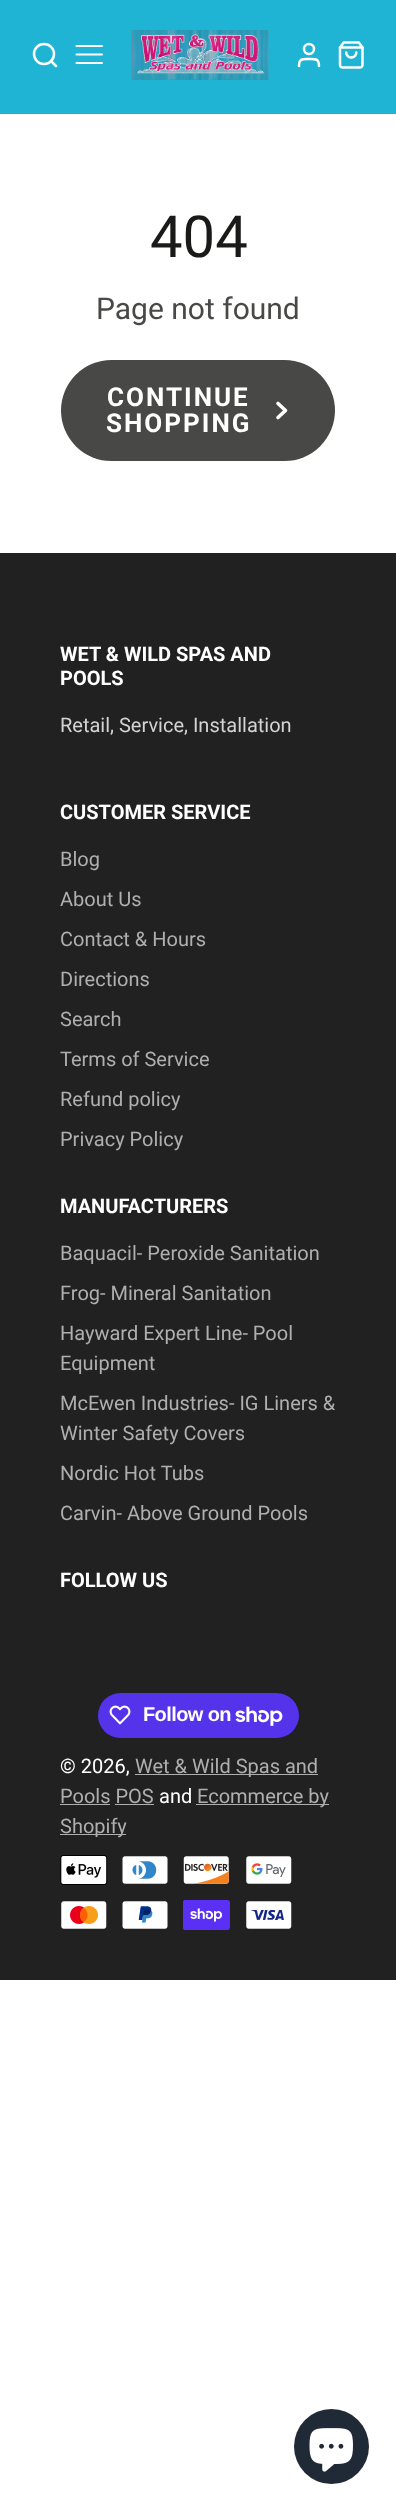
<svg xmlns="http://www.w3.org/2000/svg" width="396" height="2510">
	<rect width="100%" height="100%" fill="#FFFFFF" />
	<rect x="0" y="0" width="396" height="114" fill="#1FB4D4" />
	<circle cx="44" cy="54" r="10" fill="none" stroke="#FFFFFF" stroke-width="2.5" />
	<path d="M56 66L51 61" fill="none" stroke="#FFFFFF" stroke-width="2.5" stroke-linecap="round" stroke-linejoin="round" />
	<path d="M76.5 54.5H102M76.5 46H102M76.5 63H102" fill="none" stroke="#FFFFFF" stroke-width="2.1" stroke-linecap="round" stroke-linejoin="round" />
	<image x="131" y="30" width="138" height="50" href="assets/img1.png" />
	<circle cx="309" cy="49" r="5" fill="none" stroke="#FFFFFF" stroke-width="2.5" />
	<path d="M319 66C319 58.5 315.5 59 309 59C302 59 299 58.5 299 66" fill="none" stroke="#FFFFFF" stroke-width="2.5" stroke-linecap="round" stroke-linejoin="round" />
	<image x="338" y="41" width="26" height="28" href="assets/img2.png" />
	<text x="150" y="257" font-family="Roboto" font-size="58" fill="#1A1B18">404</text>
	<text x="96" y="319" font-family="Roboto" font-size="30" fill="#484946">Page not found</text>
	<rect x="61" y="360" width="274" height="101" rx="50.5" fill="#484946" />
	<g font-family="Roboto" font-size="26" font-weight="700" letter-spacing="2" fill="#FFFFFF">
		<text x="107" y="406">CONTINUE</text>
		<text x="106" y="432">SHOPPING</text>
	</g>
	<path d="M278 417.5L285.5 410.5L278 403.5" fill="none" stroke="#FFFFFF" stroke-width="3.6" stroke-linecap="round" stroke-linejoin="round" />
	<rect x="0" y="553" width="396" height="1427" fill="#212121" />
	<g font-family="Roboto" font-size="20" font-weight="700" fill="#FFFFFF">
		<text x="60" y="661">WET &amp; WILD SPAS AND</text>
		<text x="60" y="685">POOLS</text>
	</g>
	<text x="60" y="732" font-family="Roboto" font-size="20" fill="#D3D3D3">Retail, Service, Installation</text>
	<text x="60" y="819" font-family="Roboto" font-size="20" font-weight="700" fill="#FFFFFF">CUSTOMER SERVICE</text>
	<g font-family="Roboto" font-size="20" fill="#AFAFAF">
		<text x="60" y="866">Blog</text>
		<text x="60" y="906">About Us</text>
		<text x="60" y="946">Contact &amp; Hours</text>
		<text x="60" y="986">Directions</text>
		<text x="60" y="1026">Search</text>
		<text x="60" y="1066">Terms of Service</text>
		<text x="60" y="1106">Refund policy</text>
		<text x="60" y="1146">Privacy Policy</text>
	</g>
	<text x="60" y="1213" font-family="Roboto" font-size="20" font-weight="700" fill="#FFFFFF">MANUFACTURERS</text>
	<g font-family="Roboto" font-size="20" fill="#AFAFAF">
		<text x="60" y="1260">Baquacil- Peroxide Sanitation</text>
		<text x="60" y="1300">Frog- Mineral Sanitation</text>
		<text x="60" y="1340">Hayward Expert Line- Pool</text>
		<text x="60" y="1370">Equipment</text>
		<text x="60" y="1410">McEwen Industries- IG Liners &amp;</text>
		<text x="60" y="1440">Winter Safety Covers</text>
		<text x="60" y="1480">Nordic Hot Tubs</text>
		<text x="60" y="1520">Carvin- Above Ground Pools</text>
	</g>
	<text x="60" y="1587" font-family="Roboto" font-size="20" font-weight="700" fill="#FFFFFF">FOLLOW US</text>
	<rect x="98" y="1693" width="201" height="45" rx="22.5" fill="#5433EB" />
	<image x="109" y="1705" width="22" height="20" href="assets/img3.png" />
	<text x="143" y="1721" font-family="Liberation Sans" font-size="20" font-weight="700" letter-spacing="-0.6" fill="#FFFFFF">Follow on</text>
	<image x="235" y="1706" width="48" height="20" href="assets/img4.png" />
	<text x="60" y="1773" font-family="Roboto" font-size="20" fill="#FFFFFF">© 2026,</text>
	<rect x="135" y="1774" width="183" height="1" fill="#AFAFAF" />
	<g font-family="Roboto" font-size="20" fill="#AFAFAF">
		<text x="135" y="1773">Wet &amp; Wild Spas and</text>
		<text x="60" y="1803">Pools POS</text>
	</g>
	<rect x="60" y="1804" width="50" height="1" fill="#AFAFAF" />
	<text x="159" y="1803" font-family="Roboto" font-size="20" fill="#FFFFFF">and</text>
	<rect x="196" y="1804" width="133" height="1" fill="#AFAFAF" />
	<text x="197" y="1803" font-family="Roboto" font-size="20" fill="#AFAFAF">Ecommerce by</text>
	<rect x="115" y="1804" width="39" height="1" fill="#AFAFAF" />
	<rect x="60" y="1834" width="66" height="1" fill="#AFAFAF" />
	<text x="60" y="1833" font-family="Roboto" font-size="20" fill="#AFAFAF">Shopify</text>
	<image x="60" y="1855" width="48" height="30" href="assets/img5.png" />
	<image x="122" y="1856" width="46" height="28" href="assets/img6.png" />
	<image x="183" y="1856" width="46" height="28" href="assets/img7.png" />
	<image x="246" y="1856" width="46" height="28" href="assets/img8.png" />
	<image x="61" y="1901" width="46" height="28" href="assets/img9.png" />
	<image x="122" y="1901" width="46" height="28" href="assets/img10.png" />
	<image x="183" y="1900" width="47" height="30" href="assets/img11.png" />
	<image x="246" y="1901" width="46" height="28" href="assets/img12.png" />
	<circle cx="331.5" cy="2446.5" r="37.5" fill="#202A36" />
	<image x="309" y="2428" width="44" height="44" href="assets/img13.png" />
</svg>
